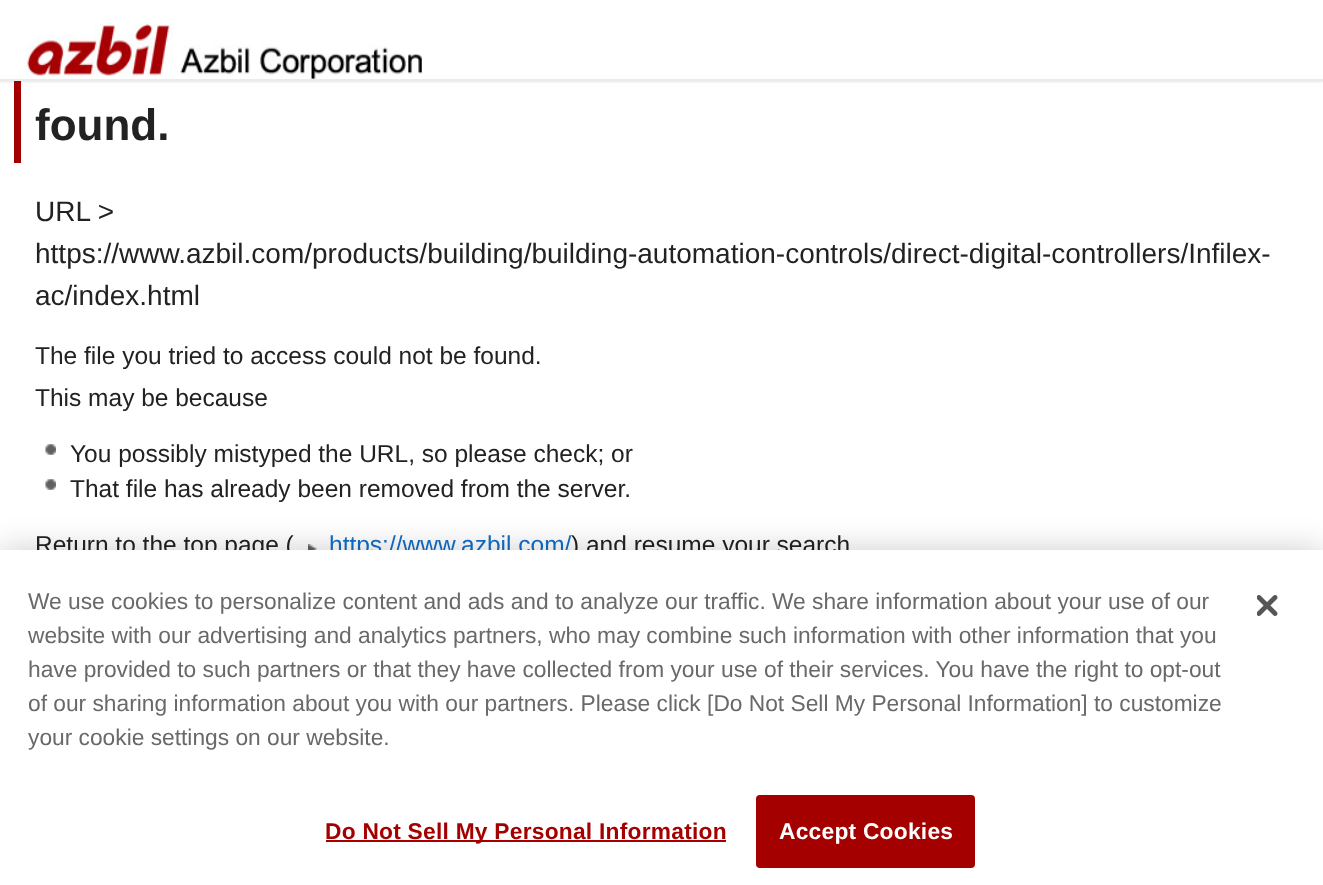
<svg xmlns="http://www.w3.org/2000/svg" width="1323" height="885">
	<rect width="100%" height="100%" fill="#FFFFFF" />
	<rect x="14" y="81" width="7" height="82" fill="#A50000" />
	<rect x="0" y="2" width="1323" height="80" fill="#000000" fill-opacity="0.1" filter="blur(1px)" />
	<rect x="0" y="1" width="1323" height="78" fill="#FFFFFF" />
	<rect x="0" y="79" width="1323" height="2" fill="#EBEBEB" />
	<image x="26" y="24" width="396" height="55" href="assets/img1.png" />
	<text x="35" y="140" font-family="Liberation Sans" font-size="44" font-weight="700" fill="#222222">found.</text>
	<g font-family="Liberation Sans" font-size="28" fill="#222222">
		<text x="35" y="221">URL &gt;</text>
		<text x="35" y="263">https://www.azbil.com/products/building/building-automation-controls/direct-digital-controllers/Infilex-</text>
		<text x="35" y="305">ac/index.html</text>
	</g>
	<g font-family="Liberation Sans" font-size="24.5" fill="#222222">
		<text x="35" y="364">The file you tried to access could not be found.</text>
		<text x="35" y="406">This may be because</text>
	</g>
	<image x="45" y="444" width="11" height="11" href="assets/img2.png" />
	<text x="70" y="462" font-family="Liberation Sans" font-size="24.5" fill="#222222">You possibly mistyped the URL, so please check; or</text>
	<image x="45" y="479" width="11" height="11" href="assets/img2.png" />
	<g font-family="Liberation Sans" font-size="24.5" fill="#222222">
		<text x="70" y="497">That file has already been removed from the server.</text>
		<text x="35" y="553">Return to the top page (</text>
	</g>
	<image x="308" y="544" width="9" height="6" href="assets/img3.png" />
	<text x="329" y="553" font-family="Liberation Sans" font-size="24.5" fill="#106FC9">https://www.azbil.com/</text>
	<text x="571" y="553" font-family="Liberation Sans" font-size="24.5" fill="#222222">) and resume your search</text>
	<rect x="0" y="550" width="1323" height="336" fill="#000000" fill-opacity="0.2" filter="blur(16px)" />
	<rect x="0" y="550" width="1323" height="335" fill="#FFFFFF" />
	<g font-family="Liberation Sans" font-size="22.75" fill="#696969">
		<text x="28" y="609">We use cookies to personalize content and ads and to analyze our traffic. We share information about your use of our</text>
		<text x="28" y="643">website with our advertising and analytics partners, who may combine such information with other information that you</text>
		<text x="28" y="677">have provided to such partners or that they have collected from your use of their services. You have the right to opt-out</text>
		<text x="28" y="711">of our sharing information about you with our partners. Please click [Do Not Sell My Personal Information] to customize</text>
		<text x="28" y="745">your cookie settings on our website.</text>
	</g>
	<rect x="326" y="840" width="400" height="2" fill="#A50000" />
	<text x="325" y="839" font-family="Liberation Sans" font-size="22.75" font-weight="700" letter-spacing="0.25" fill="#A50000">Do Not Sell My Personal Information</text>
	<rect x="757" y="796" width="217" height="71" rx="3" fill="#A50000" stroke="#A50000" stroke-width="2" />
	<text x="779" y="839" font-family="Liberation Sans" font-size="22.75" font-weight="700" letter-spacing="0.25" fill="#FFFFFF">Accept Cookies</text>
	<image x="1257" y="595" width="21" height="21" href="assets/img4.png" />
</svg>
